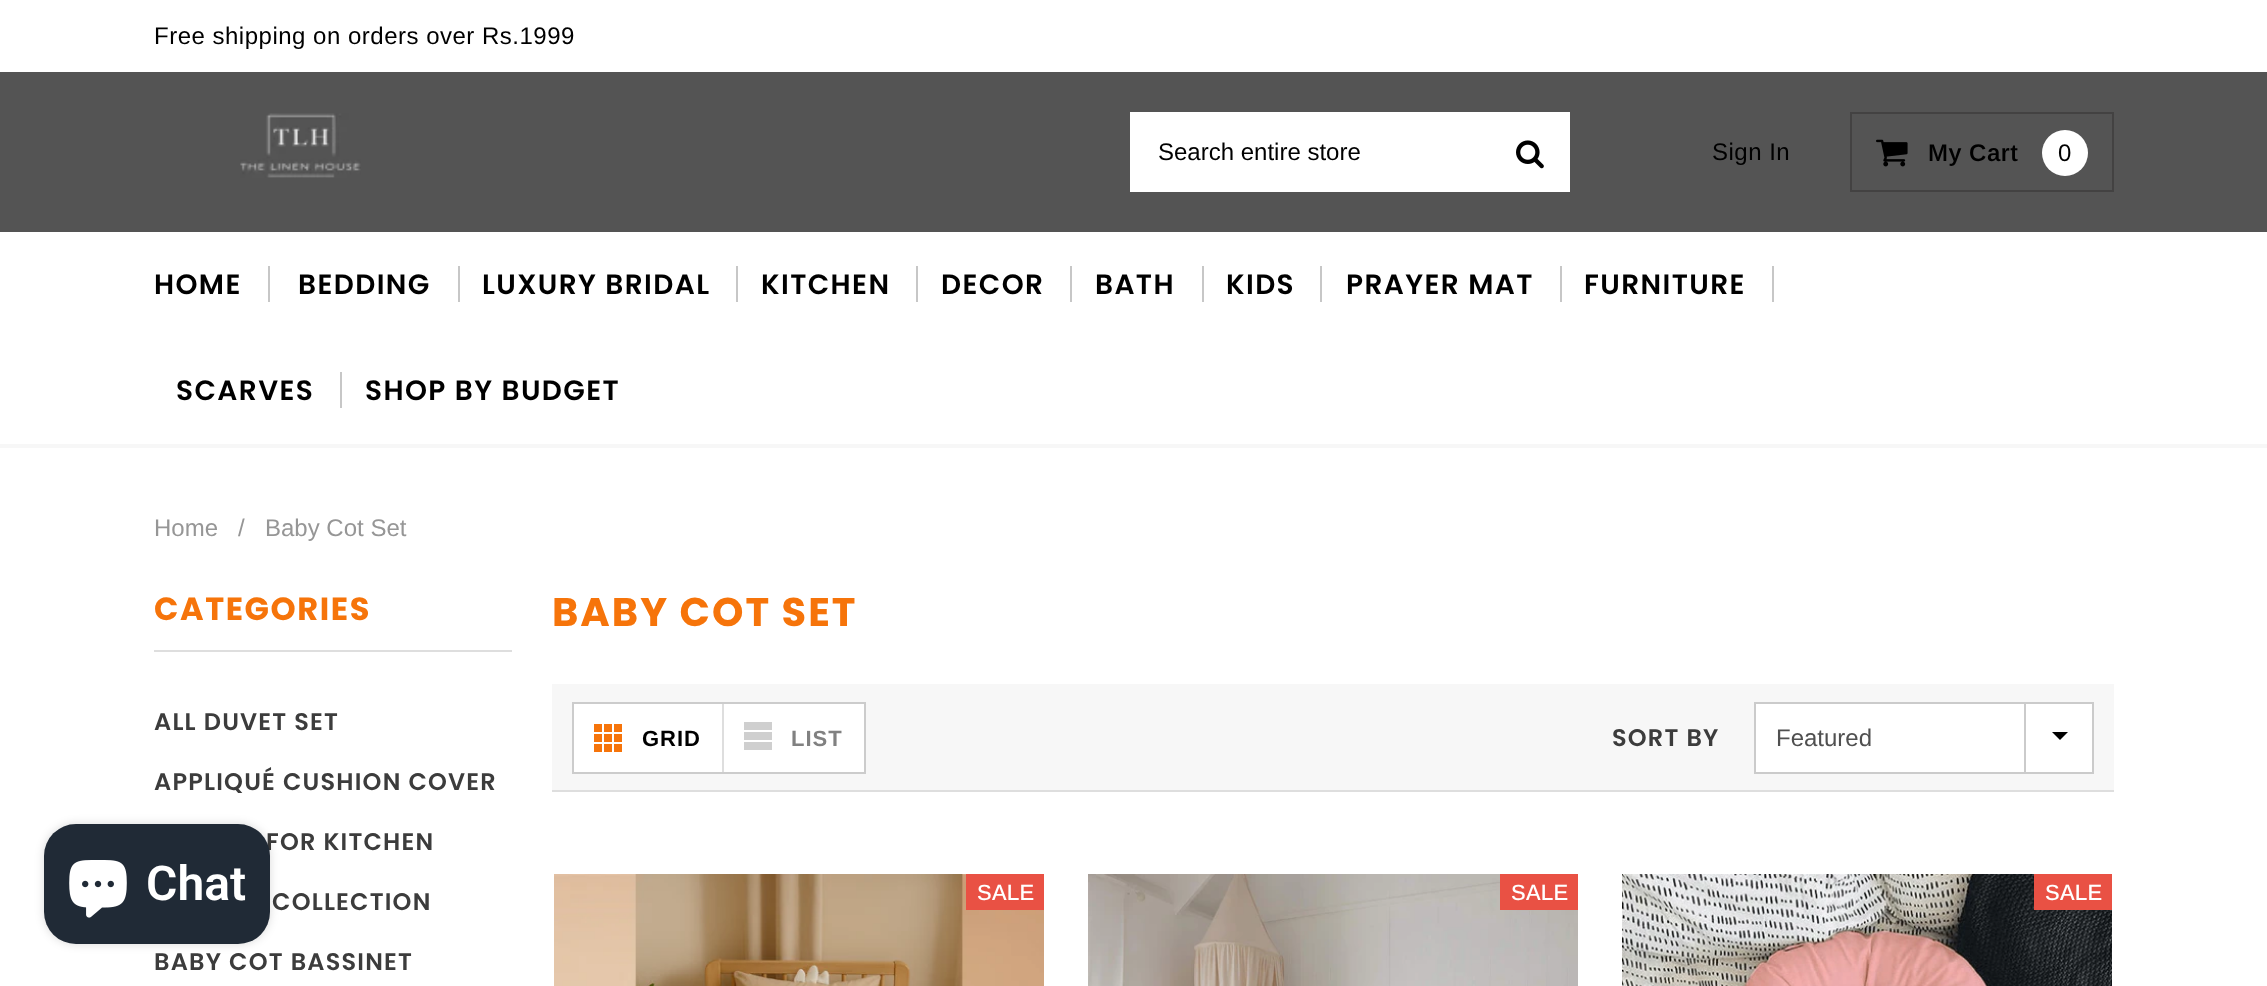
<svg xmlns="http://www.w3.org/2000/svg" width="2267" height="986">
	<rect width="100%" height="100%" fill="#FFFFFF" />
	<rect x="0" y="72" width="2267" height="160" fill="#545454" />
	<text x="154" y="44" font-family="Arimo" font-size="24" letter-spacing="0.5" fill="#000000">Free shipping on orders over Rs.1999</text>
	<image x="240" y="113" width="121" height="65" href="assets/img1.png" />
	<rect x="1130" y="112" width="440" height="80" fill="#FFFFFF" />
	<text x="1158" y="160" font-family="Arimo" font-size="24" fill="#000000">Search entire store</text>
	<image x="1516" y="140" width="28" height="29" href="assets/img2.png" />
	<text x="1712" y="160" font-family="Arimo" font-size="24" letter-spacing="0.5" fill="#000000">Sign In</text>
	<rect x="1851" y="113" width="262" height="78" fill="none" stroke="#434242" stroke-width="2" />
	<image x="1876" y="139" width="32" height="28" href="assets/img3.png" />
	<text x="1928" y="161" font-family="Arimo" font-size="24" font-weight="600" letter-spacing="0.5" fill="#000000">My Cart</text>
	<circle cx="2065" cy="153" r="23" fill="#FFFFFF" />
	<text x="2058" y="161" font-family="Arimo" font-size="24" fill="#000000">0</text>
	<rect x="0" y="444" width="2267" height="4" fill="#F7F7F7" />
	<text x="154" y="294" font-family="Poppins" font-size="28" font-weight="600" letter-spacing="1.4" fill="#000000">HOME</text>
	<rect x="268" y="266" width="2" height="36" fill="#C7C7C7" />
	<text x="298" y="294" font-family="Poppins" font-size="28" font-weight="600" letter-spacing="1.4" fill="#000000">BEDDING</text>
	<rect x="458" y="266" width="2" height="36" fill="#C7C7C7" />
	<text x="482" y="294" font-family="Poppins" font-size="28" font-weight="600" letter-spacing="1.4" fill="#000000">LUXURY BRIDAL</text>
	<rect x="736" y="266" width="2" height="36" fill="#C7C7C7" />
	<text x="761" y="294" font-family="Poppins" font-size="28" font-weight="600" letter-spacing="1.4" fill="#000000">KITCHEN</text>
	<rect x="916" y="266" width="2" height="36" fill="#C7C7C7" />
	<text x="941" y="294" font-family="Poppins" font-size="28" font-weight="600" letter-spacing="1.4" fill="#000000">DECOR</text>
	<rect x="1070" y="266" width="2" height="36" fill="#C7C7C7" />
	<text x="1095" y="294" font-family="Poppins" font-size="28" font-weight="600" letter-spacing="1.4" fill="#000000">BATH</text>
	<rect x="1202" y="266" width="2" height="36" fill="#C7C7C7" />
	<text x="1226" y="294" font-family="Poppins" font-size="28" font-weight="600" letter-spacing="1.4" fill="#000000">KIDS</text>
	<rect x="1320" y="266" width="2" height="36" fill="#C7C7C7" />
	<text x="1346" y="294" font-family="Poppins" font-size="28" font-weight="600" letter-spacing="1.4" fill="#000000">PRAYER MAT</text>
	<rect x="1560" y="266" width="2" height="36" fill="#C7C7C7" />
	<text x="1584" y="294" font-family="Poppins" font-size="28" font-weight="600" letter-spacing="1.4" fill="#000000">FURNITURE</text>
	<rect x="1772" y="266" width="2" height="36" fill="#C7C7C7" />
	<text x="176" y="400" font-family="Poppins" font-size="28" font-weight="600" letter-spacing="1.4" fill="#000000">SCARVES</text>
	<rect x="340" y="372" width="2" height="36" fill="#C7C7C7" />
	<text x="365" y="400" font-family="Poppins" font-size="28" font-weight="600" letter-spacing="1.4" fill="#000000">SHOP BY BUDGET</text>
	<g font-family="Arimo" font-size="24" fill="#969696">
		<text x="154" y="536">Home</text>
		<text x="238" y="536">/</text>
		<text x="265" y="536">Baby Cot Set</text>
	</g>
	<rect x="154" y="650" width="358" height="2" fill="#DEDEDE" />
	<text x="154" y="620" font-family="Poppins" font-size="32" font-weight="700" letter-spacing="1.6" fill="#F6740A">CATEGORIES</text>
	<g font-family="Poppins" font-size="24" font-weight="600" letter-spacing="1.2" fill="#3C3C3C">
		<text x="154" y="730">ALL DUVET SET</text>
		<text x="154" y="790">APPLIQUÉ CUSHION COVER</text>
		<text x="266" y="850">FOR KITCHEN</text>
		<text x="272" y="910">COLLECTION</text>
		<text x="154" y="970">BABY COT BASSINET</text>
	</g>
	<text x="552" y="626" font-family="Poppins" font-size="40" font-weight="700" letter-spacing="2" fill="#F6740A">BABY COT SET</text>
	<rect x="552" y="684" width="1562" height="106" fill="#F7F7F7" />
	<rect x="552" y="790" width="1562" height="2" fill="#DEDEDE" />
	<rect x="573" y="703" width="292" height="70" fill="#FFFFFF" stroke="#CCCCCC" stroke-width="2" />
	<rect x="722" y="704" width="2" height="68" fill="#DEDEDE" />
	<rect x="604" y="724" width="8" height="8" fill="#F6740A" />
	<rect x="594" y="724" width="8" height="8" fill="#F6740A" />
	<rect x="614" y="724" width="8" height="8" fill="#F6740A" />
	<rect x="604" y="734" width="8" height="8" fill="#F6740A" />
	<rect x="594" y="734" width="8" height="8" fill="#F6740A" />
	<rect x="614" y="734" width="8" height="8" fill="#F6740A" />
	<rect x="604" y="744" width="8" height="8" fill="#F6740A" />
	<rect x="594" y="744" width="8" height="8" fill="#F6740A" />
	<rect x="614" y="744" width="8" height="8" fill="#F6740A" />
	<text x="642" y="746" font-family="Arimo" font-size="22" font-weight="700" letter-spacing="1" fill="#000000">GRID</text>
	<rect x="744" y="722" width="28" height="8" fill="#CFCFCF" />
	<rect x="744" y="732" width="28" height="8" fill="#CFCFCF" />
	<rect x="744" y="742" width="28" height="8" fill="#CFCFCF" />
	<text x="791" y="746" font-family="Arimo" font-size="22" font-weight="700" letter-spacing="1" fill="#818181">LIST</text>
	<text x="1612" y="746" font-family="Poppins" font-size="24" font-weight="600" letter-spacing="1.2" fill="#3C3C3C">SORT BY</text>
	<rect x="1755" y="703" width="338" height="70" fill="#FFFFFF" stroke="#CBCBCB" stroke-width="2" />
	<text x="1776" y="746" font-family="Arimo" font-size="24" fill="#505050">Featured</text>
	<rect x="2024" y="704" width="2" height="68" fill="#CBCBCB" />
	<path d="M2052 732H2068L2060 740Z" fill="#000000" />
	<image x="554" y="874" width="490" height="112" href="assets/img4.png" />
	<rect x="966" y="874" width="78" height="36" fill="#E95144" />
	<text x="977" y="900" font-family="Arimo" font-size="22" font-weight="500" fill="#FFFFFF">SALE</text>
	<image x="1088" y="874" width="490" height="112" href="assets/img5.png" />
	<rect x="1500" y="874" width="78" height="36" fill="#E95144" />
	<text x="1511" y="900" font-family="Arimo" font-size="22" font-weight="500" fill="#FFFFFF">SALE</text>
	<image x="1622" y="874" width="490" height="112" href="assets/img6.png" />
	<rect x="2034" y="874" width="78" height="36" fill="#E95144" />
	<text x="2045" y="900" font-family="Arimo" font-size="22" font-weight="500" fill="#FFFFFF">SALE</text>
	<rect x="44" y="824" width="226" height="120" rx="32" fill="#000000" fill-opacity="0.15" filter="blur(5px)" />
	<rect x="44" y="824" width="226" height="120" rx="32" fill="#202A36" />
	<image x="69" y="860" width="58" height="58" href="assets/img7.png" />
	<text x="146" y="900" font-family="Roboto" font-size="48" font-weight="600" fill="#FFFFFF">Chat</text>
</svg>
